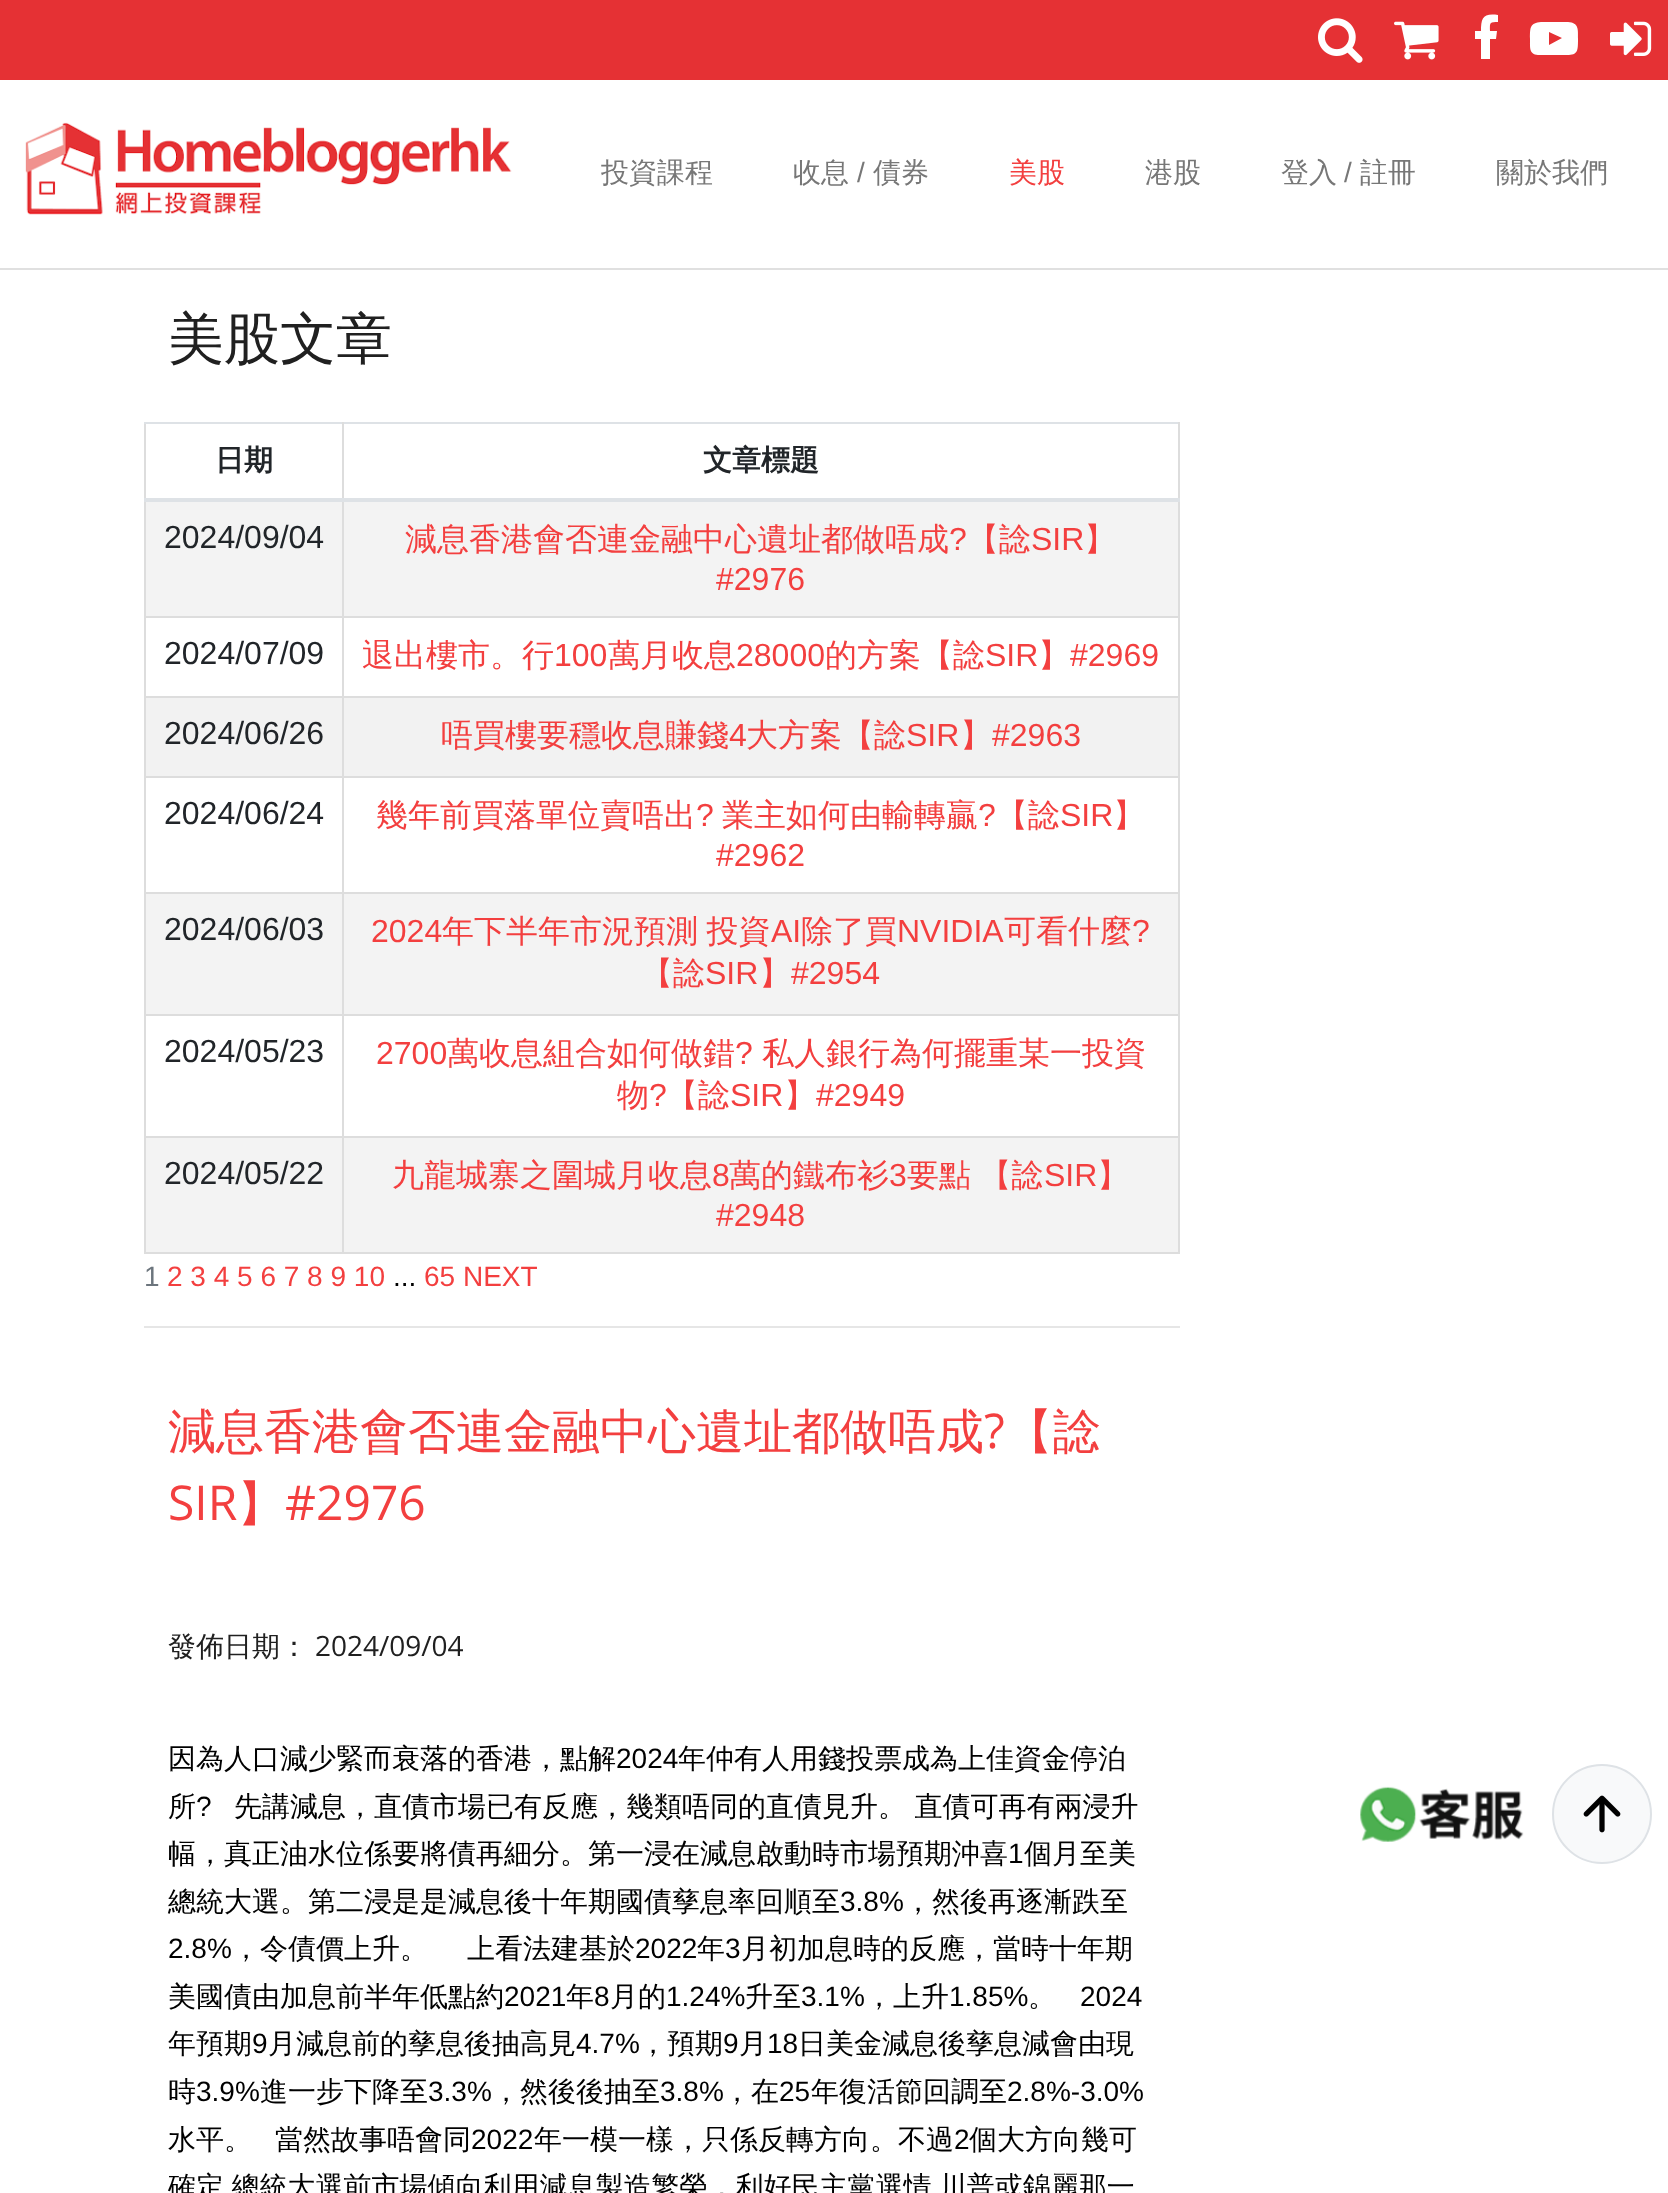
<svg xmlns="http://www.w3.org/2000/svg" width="1668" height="2193">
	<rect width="100%" height="100%" fill="#FFFFFF" />
	<rect x="0" y="0" width="1668" height="80" fill="#E53134" />
	<image x="1318" y="18" width="45" height="45" href="assets/img1.png" />
	<image x="1394" y="21" width="45" height="39" href="assets/img2.png" />
	<path d="M1498 15V22C1489 22 1490 23 1490 31H1497L1496 39H1490V59H1481V39H1475V31H1481C1481 18 1483 13 1498 15Z" fill="#FFFFFF" />
	<path d="M1549 45L1562 38L1549 32ZM1554 22H1568C1579 23 1578 29 1578 39C1578 51 1578 55 1567 55H1540C1529 55 1530 49 1530 39C1530 27 1530 23 1541 22Z" fill="#FFFFFF" />
	<image x="1610" y="21" width="42" height="35" href="assets/img3.png" />
	<rect x="0" y="268" width="1668" height="2" fill="#E0E0E0" />
	<image x="25" y="122" width="487" height="93" href="assets/img4.png" />
	<g font-family="WenQuanYi Zen Hei" font-size="28" font-weight="500" fill="#777777">
		<text x="601" y="182">投資課程</text>
		<text x="793" y="182">收息</text>
	</g>
	<text x="857" y="182" font-family="Liberation Sans" font-size="28" fill="#777777">/</text>
	<text x="873" y="182" font-family="WenQuanYi Zen Hei" font-size="28" font-weight="500" fill="#777777">債券</text>
	<text x="1009" y="182" font-family="WenQuanYi Zen Hei" font-size="28" font-weight="500" fill="#F33F3F">美股</text>
	<g font-family="WenQuanYi Zen Hei" font-size="28" font-weight="500" fill="#777777">
		<text x="1145" y="182">港股</text>
		<text x="1281" y="182">登入</text>
	</g>
	<text x="1344" y="182" font-family="Liberation Sans" font-size="28" fill="#777777">/</text>
	<g font-family="WenQuanYi Zen Hei" font-size="28" font-weight="500" fill="#777777">
		<text x="1360" y="182">註冊</text>
		<text x="1496" y="182">關於我們</text>
	</g>
	<text x="168" y="358" font-family="WenQuanYi Zen Hei" font-size="56" font-weight="500" fill="#202020">美股文章</text>
	<rect x="144" y="422" width="2" height="832" fill="#DDDDDD" />
	<rect x="144" y="422" width="1036" height="2" fill="#DEE2E6" />
	<rect x="146" y="502" width="1032" height="114" fill="#F3F3F3" />
	<rect x="146" y="698" width="1032" height="78" fill="#F2F2F2" />
	<rect x="146" y="894" width="1032" height="120" fill="#F3F3F3" />
	<rect x="146" y="1138" width="1032" height="114" fill="#F3F3F3" />
	<rect x="1178" y="500" width="2" height="754" fill="#DDDDDD" />
	<rect x="342" y="1252" width="838" height="2" fill="#DDDDDD" />
	<rect x="342" y="1136" width="2" height="118" fill="#DDDDDD" />
	<rect x="342" y="1136" width="838" height="2" fill="#DDDDDD" />
	<rect x="342" y="1014" width="2" height="124" fill="#DDDDDD" />
	<rect x="342" y="1014" width="838" height="2" fill="#DDDDDD" />
	<rect x="342" y="892" width="2" height="124" fill="#DDDDDD" />
	<rect x="342" y="892" width="838" height="2" fill="#DDDDDD" />
	<rect x="342" y="776" width="2" height="118" fill="#DDDDDD" />
	<rect x="342" y="776" width="838" height="2" fill="#DDDDDD" />
	<rect x="342" y="696" width="2" height="82" fill="#DDDDDD" />
	<rect x="342" y="696" width="838" height="2" fill="#DDDDDD" />
	<rect x="342" y="616" width="2" height="82" fill="#DDDDDD" />
	<rect x="342" y="616" width="838" height="2" fill="#DDDDDD" />
	<rect x="342" y="500" width="2" height="118" fill="#DDDDDD" />
	<rect x="342" y="422" width="2" height="80" fill="#DDDDDD" />
	<text x="215" y="470" font-family="WenQuanYi Zen Hei" font-size="29" font-weight="700" fill="#212529">日期</text>
	<rect x="1178" y="422" width="2" height="80" fill="#DDDDDD" />
	<rect x="144" y="498" width="1036" height="4" fill="#DEE2E6" />
	<text x="703" y="470" font-family="WenQuanYi Zen Hei" font-size="29" font-weight="700" fill="#212529">文章標題</text>
	<rect x="144" y="616" width="200" height="2" fill="#DDDDDD" />
	<text x="164" y="548" font-family="Liberation Sans" font-size="32" fill="#212529">2024/09/04</text>
	<text x="405" y="550" font-family="WenQuanYi Zen Hei" font-size="32" font-weight="500" fill="#F33F3F">減息香港會否連金融中心遺址都做唔成</text>
	<text x="949" y="550" font-family="Liberation Sans" font-size="32" fill="#F33F3F">?</text>
	<text x="967" y="550" font-family="WenQuanYi Zen Hei" font-size="32" font-weight="500" fill="#F33F3F">【諗</text>
	<text x="1031" y="550" font-family="Liberation Sans" font-size="32" fill="#F33F3F">SIR</text>
	<text x="1084" y="550" font-family="WenQuanYi Zen Hei" font-size="32" font-weight="500" fill="#F33F3F">】</text>
	<text x="716" y="590" font-family="Liberation Sans" font-size="32" fill="#F33F3F">#2976</text>
	<rect x="144" y="696" width="200" height="2" fill="#DDDDDD" />
	<text x="164" y="664" font-family="Liberation Sans" font-size="32" fill="#212529">2024/07/09</text>
	<text x="362" y="666" font-family="WenQuanYi Zen Hei" font-size="32" font-weight="500" fill="#F33F3F">退出樓市。行</text>
	<text x="554" y="666" font-family="Liberation Sans" font-size="32" fill="#F33F3F">100</text>
	<text x="608" y="666" font-family="WenQuanYi Zen Hei" font-size="32" font-weight="500" fill="#F33F3F">萬月收息</text>
	<text x="736" y="666" font-family="Liberation Sans" font-size="32" fill="#F33F3F">28000</text>
	<text x="825" y="666" font-family="WenQuanYi Zen Hei" font-size="32" font-weight="500" fill="#F33F3F">的方案【諗</text>
	<text x="985" y="666" font-family="Liberation Sans" font-size="32" fill="#F33F3F">SIR</text>
	<text x="1038" y="666" font-family="WenQuanYi Zen Hei" font-size="32" font-weight="500" fill="#F33F3F">】</text>
	<text x="1070" y="666" font-family="Liberation Sans" font-size="32" fill="#F33F3F">#2969</text>
	<rect x="144" y="776" width="200" height="2" fill="#DDDDDD" />
	<text x="164" y="744" font-family="Liberation Sans" font-size="32" fill="#212529">2024/06/26</text>
	<text x="441" y="746" font-family="WenQuanYi Zen Hei" font-size="32" font-weight="500" fill="#F33F3F">唔買樓要穩收息賺錢</text>
	<text x="729" y="746" font-family="Liberation Sans" font-size="32" fill="#F33F3F">4</text>
	<text x="746" y="746" font-family="WenQuanYi Zen Hei" font-size="32" font-weight="500" fill="#F33F3F">大方案【諗</text>
	<text x="906" y="746" font-family="Liberation Sans" font-size="32" fill="#F33F3F">SIR</text>
	<text x="960" y="746" font-family="WenQuanYi Zen Hei" font-size="32" font-weight="500" fill="#F33F3F">】</text>
	<text x="992" y="746" font-family="Liberation Sans" font-size="32" fill="#F33F3F">#2963</text>
	<rect x="144" y="892" width="200" height="2" fill="#DDDDDD" />
	<text x="164" y="824" font-family="Liberation Sans" font-size="32" fill="#212529">2024/06/24</text>
	<text x="376" y="826" font-family="WenQuanYi Zen Hei" font-size="32" font-weight="500" fill="#F33F3F">幾年前買落單位賣唔出</text>
	<text x="696" y="826" font-family="Liberation Sans" font-size="32" fill="#F33F3F">?</text>
	<text x="722" y="826" font-family="WenQuanYi Zen Hei" font-size="32" font-weight="500" fill="#F33F3F">業主如何由輸轉贏</text>
	<text x="978" y="826" font-family="Liberation Sans" font-size="32" fill="#F33F3F">?</text>
	<text x="996" y="826" font-family="WenQuanYi Zen Hei" font-size="32" font-weight="500" fill="#F33F3F">【諗</text>
	<text x="1060" y="826" font-family="Liberation Sans" font-size="32" fill="#F33F3F">SIR</text>
	<text x="1113" y="826" font-family="WenQuanYi Zen Hei" font-size="32" font-weight="500" fill="#F33F3F">】</text>
	<text x="716" y="866" font-family="Liberation Sans" font-size="32" fill="#F33F3F">#2962</text>
	<rect x="144" y="1014" width="200" height="2" fill="#DDDDDD" />
	<text x="164" y="940" font-family="Liberation Sans" font-size="32" fill="#212529">2024/06/03</text>
	<text x="371" y="942" font-family="Liberation Sans" font-size="32" fill="#F33F3F">2024</text>
	<text x="442" y="942" word-spacing="-1" font-family="WenQuanYi Zen Hei" font-size="32" font-weight="500" fill="#F33F3F">年下半年市況預測 投資</text>
	<text x="771" y="942" font-family="Liberation Sans" font-size="32" fill="#F33F3F">AI</text>
	<text x="801" y="942" font-family="WenQuanYi Zen Hei" font-size="32" font-weight="500" fill="#F33F3F">除了買</text>
	<text x="897" y="942" font-family="Liberation Sans" font-size="32" fill="#F33F3F">NVIDIA</text>
	<text x="1004" y="942" font-family="WenQuanYi Zen Hei" font-size="32" font-weight="500" fill="#F33F3F">可看什麼</text>
	<text x="1132" y="942" font-family="Liberation Sans" font-size="32" fill="#F33F3F">?</text>
	<text x="641" y="984" font-family="WenQuanYi Zen Hei" font-size="32" font-weight="500" fill="#F33F3F">【諗</text>
	<text x="705" y="984" font-family="Liberation Sans" font-size="32" fill="#F33F3F">SIR</text>
	<text x="759" y="984" font-family="WenQuanYi Zen Hei" font-size="32" font-weight="500" fill="#F33F3F">】</text>
	<text x="791" y="984" font-family="Liberation Sans" font-size="32" fill="#F33F3F">#2954</text>
	<rect x="144" y="1136" width="200" height="2" fill="#DDDDDD" />
	<text x="164" y="1062" font-family="Liberation Sans" font-size="32" fill="#212529">2024/05/23</text>
	<text x="376" y="1064" font-family="Liberation Sans" font-size="32" fill="#F33F3F">2700</text>
	<text x="447" y="1064" font-family="WenQuanYi Zen Hei" font-size="32" font-weight="500" fill="#F33F3F">萬收息組合如何做錯</text>
	<text x="735" y="1064" font-family="Liberation Sans" font-size="32" fill="#F33F3F">?</text>
	<g font-family="WenQuanYi Zen Hei" font-size="32" font-weight="500" fill="#F33F3F">
		<text x="762" y="1064">私人銀行為何擺重某一投資</text>
		<text x="617" y="1106">物</text>
	</g>
	<text x="649" y="1106" font-family="Liberation Sans" font-size="32" fill="#F33F3F">?</text>
	<text x="666" y="1106" font-family="WenQuanYi Zen Hei" font-size="32" font-weight="500" fill="#F33F3F">【諗</text>
	<text x="730" y="1106" font-family="Liberation Sans" font-size="32" fill="#F33F3F">SIR</text>
	<text x="784" y="1106" font-family="WenQuanYi Zen Hei" font-size="32" font-weight="500" fill="#F33F3F">】</text>
	<text x="816" y="1106" font-family="Liberation Sans" font-size="32" fill="#F33F3F">#2949</text>
	<rect x="144" y="1252" width="200" height="2" fill="#DDDDDD" />
	<text x="164" y="1184" font-family="Liberation Sans" font-size="32" fill="#212529">2024/05/22</text>
	<text x="392" y="1186" font-family="WenQuanYi Zen Hei" font-size="32" font-weight="500" fill="#F33F3F">九龍城寨之圍城月收息</text>
	<text x="712" y="1186" font-family="Liberation Sans" font-size="32" fill="#F33F3F">8</text>
	<text x="729" y="1186" font-family="WenQuanYi Zen Hei" font-size="32" font-weight="500" fill="#F33F3F">萬的鐵布衫</text>
	<text x="889" y="1186" font-family="Liberation Sans" font-size="32" fill="#F33F3F">3</text>
	<text x="907" y="1186" word-spacing="-1" font-family="WenQuanYi Zen Hei" font-size="32" font-weight="500" fill="#F33F3F">要點 【諗</text>
	<text x="1044" y="1186" font-family="Liberation Sans" font-size="32" fill="#F33F3F">SIR</text>
	<text x="1097" y="1186" font-family="WenQuanYi Zen Hei" font-size="32" font-weight="500" fill="#F33F3F">】</text>
	<text x="716" y="1226" font-family="Liberation Sans" font-size="32" fill="#F33F3F">#2948</text>
	<text x="144" y="1286" font-family="Liberation Sans" font-size="28" fill="#6C757D">1</text>
	<text x="167" y="1286" font-family="Liberation Sans" font-size="28" fill="#F33F3F">2 3 4 5 6 7 8 9 10</text>
	<text x="393" y="1286" font-family="Liberation Sans" font-size="28" fill="#000000">...</text>
	<text x="424" y="1286" font-family="Liberation Sans" font-size="28" fill="#F33F3F">65 NEXT</text>
	<rect x="144" y="1326" width="1036" height="2" fill="#E6E6E6" />
	<text x="168" y="1448" font-family="WenQuanYi Zen Hei" font-size="48" font-weight="500" fill="#F33F3F">減息香港會否連金融中心遺址都做唔成</text>
	<text x="984" y="1448" font-family="Open Sans" font-size="48" fill="#F33F3F">?</text>
	<text x="1005" y="1448" font-family="WenQuanYi Zen Hei" font-size="48" font-weight="500" fill="#F33F3F">【諗</text>
	<text x="168" y="1520" font-family="Open Sans" font-size="48" fill="#F33F3F">SIR</text>
	<text x="237" y="1520" font-family="WenQuanYi Zen Hei" font-size="48" font-weight="500" fill="#F33F3F">】</text>
	<text x="285" y="1520" font-family="Open Sans" font-size="48" fill="#F33F3F">#2976</text>
	<text x="168" y="1656" font-family="WenQuanYi Zen Hei" font-size="28" font-weight="500" fill="#202020">發佈日期：</text>
	<text x="315" y="1656" font-family="Open Sans" font-size="28" fill="#202020">2024/09/04</text>
	<text x="168" y="1768" font-family="WenQuanYi Zen Hei" font-size="28" font-weight="500" fill="#000000">因為人口減少緊而衰落的香港，點解</text>
	<text x="616" y="1768" font-family="Liberation Sans" font-size="28" fill="#000000">2024</text>
	<g font-family="WenQuanYi Zen Hei" font-size="28" font-weight="500" fill="#000000">
		<text x="678" y="1768">年仲有人用錢投票成為上佳資金停泊</text>
		<text x="168" y="1816">所</text>
	</g>
	<text x="196" y="1816" font-family="Liberation Sans" font-size="28" fill="#000000">?</text>
	<g font-family="WenQuanYi Zen Hei" font-size="28" font-weight="500" fill="#000000">
		<text x="234" y="1816">先講減息，直債市場已有反應，幾類唔同的直債見升。 直債可再有兩浸升</text>
		<text x="168" y="1863">幅，真正油水位係要將債再細分。第一浸在減息啟動時市場預期沖喜</text>
	</g>
	<text x="1008" y="1863" font-family="Liberation Sans" font-size="28" fill="#000000">1</text>
	<g font-family="WenQuanYi Zen Hei" font-size="28" font-weight="500" fill="#000000">
		<text x="1024" y="1863">個月至美</text>
		<text x="168" y="1911">總統大選。第二浸是是減息後十年期國債孳息率回順至</text>
	</g>
	<text x="840" y="1911" font-family="Liberation Sans" font-size="28" fill="#000000">3.8%</text>
	<text x="904" y="1911" font-family="WenQuanYi Zen Hei" font-size="28" font-weight="500" fill="#000000">，然後再逐漸跌至</text>
	<text x="168" y="1958" font-family="Liberation Sans" font-size="28" fill="#000000">2.8%</text>
	<g font-family="WenQuanYi Zen Hei" font-size="28" font-weight="500" fill="#000000">
		<text x="232" y="1958">，令債價上升。</text>
		<text x="467" y="1958">上看法建基於</text>
	</g>
	<text x="635" y="1958" font-family="Liberation Sans" font-size="28" fill="#000000">2022</text>
	<text x="697" y="1958" font-family="WenQuanYi Zen Hei" font-size="28" font-weight="500" fill="#000000">年</text>
	<text x="725" y="1958" font-family="Liberation Sans" font-size="28" fill="#000000">3</text>
	<g font-family="WenQuanYi Zen Hei" font-size="28" font-weight="500" fill="#000000">
		<text x="741" y="1958">月初加息時的反應，當時十年期</text>
		<text x="168" y="2006">美國債由加息前半年低點約</text>
	</g>
	<text x="504" y="2006" font-family="Liberation Sans" font-size="28" fill="#000000">2021</text>
	<text x="566" y="2006" font-family="WenQuanYi Zen Hei" font-size="28" font-weight="500" fill="#000000">年</text>
	<text x="594" y="2006" font-family="Liberation Sans" font-size="28" fill="#000000">8</text>
	<text x="610" y="2006" font-family="WenQuanYi Zen Hei" font-size="28" font-weight="500" fill="#000000">月的</text>
	<text x="666" y="2006" font-family="Liberation Sans" font-size="28" fill="#000000">1.24%</text>
	<text x="745" y="2006" font-family="WenQuanYi Zen Hei" font-size="28" font-weight="500" fill="#000000">升至</text>
	<text x="801" y="2006" font-family="Liberation Sans" font-size="28" fill="#000000">3.1%</text>
	<text x="865" y="2006" font-family="WenQuanYi Zen Hei" font-size="28" font-weight="500" fill="#000000">，上升</text>
	<text x="949" y="2006" font-family="Liberation Sans" font-size="28" fill="#000000">1.85%</text>
	<text x="1028" y="2006" font-family="WenQuanYi Zen Hei" font-size="28" font-weight="500" fill="#000000">。</text>
	<text x="1080" y="2006" font-family="Liberation Sans" font-size="28" fill="#000000">2024</text>
	<text x="168" y="2053" font-family="WenQuanYi Zen Hei" font-size="28" font-weight="500" fill="#000000">年預期</text>
	<text x="252" y="2053" font-family="Liberation Sans" font-size="28" fill="#000000">9</text>
	<text x="268" y="2053" font-family="WenQuanYi Zen Hei" font-size="28" font-weight="500" fill="#000000">月減息前的孳息後抽高見</text>
	<text x="576" y="2053" font-family="Liberation Sans" font-size="28" fill="#000000">4.7%</text>
	<text x="639" y="2053" font-family="WenQuanYi Zen Hei" font-size="28" font-weight="500" fill="#000000">，預期</text>
	<text x="723" y="2053" font-family="Liberation Sans" font-size="28" fill="#000000">9</text>
	<text x="739" y="2053" font-family="WenQuanYi Zen Hei" font-size="28" font-weight="500" fill="#000000">月</text>
	<text x="767" y="2053" font-family="Liberation Sans" font-size="28" fill="#000000">18</text>
	<g font-family="WenQuanYi Zen Hei" font-size="28" font-weight="500" fill="#000000">
		<text x="798" y="2053">日美金減息後孳息減會由現</text>
		<text x="168" y="2101">時</text>
	</g>
	<text x="196" y="2101" font-family="Liberation Sans" font-size="28" fill="#000000">3.9%</text>
	<text x="260" y="2101" font-family="WenQuanYi Zen Hei" font-size="28" font-weight="500" fill="#000000">進一步下降至</text>
	<text x="428" y="2101" font-family="Liberation Sans" font-size="28" fill="#000000">3.3%</text>
	<text x="492" y="2101" font-family="WenQuanYi Zen Hei" font-size="28" font-weight="500" fill="#000000">，然後後抽至</text>
	<text x="660" y="2101" font-family="Liberation Sans" font-size="28" fill="#000000">3.8%</text>
	<text x="723" y="2101" font-family="WenQuanYi Zen Hei" font-size="28" font-weight="500" fill="#000000">，在</text>
	<text x="779" y="2101" font-family="Liberation Sans" font-size="28" fill="#000000">25</text>
	<text x="811" y="2101" font-family="WenQuanYi Zen Hei" font-size="28" font-weight="500" fill="#000000">年復活節回調至</text>
	<text x="1007" y="2101" font-family="Liberation Sans" font-size="28" fill="#000000">2.8%-3.0%</text>
	<g font-family="WenQuanYi Zen Hei" font-size="28" font-weight="500" fill="#000000">
		<text x="168" y="2149">水平。</text>
		<text x="275" y="2149">當然故事唔會同</text>
	</g>
	<text x="471" y="2149" font-family="Liberation Sans" font-size="28" fill="#000000">2022</text>
	<text x="534" y="2149" font-family="WenQuanYi Zen Hei" font-size="28" font-weight="500" fill="#000000">年一模一樣，只係反轉方向。不過</text>
	<text x="954" y="2149" font-family="Liberation Sans" font-size="28" fill="#000000">2</text>
	<g font-family="WenQuanYi Zen Hei" font-size="28" font-weight="500" fill="#000000">
		<text x="969" y="2149">個大方向幾可</text>
		<text x="168" y="2196" word-spacing="-1">確定 總統大選前市場傾向利用減息製造繁榮，利好民主黨選情 川普或錦麗那一</text>
	</g>
	<image x="1360" y="1786" width="164" height="56" href="assets/img5.png" />
	<circle cx="1602" cy="1814" r="49" fill="#F8F9FA" stroke="#DEE2E6" stroke-width="2" />
	<image x="1583" y="1795" width="38" height="38" href="assets/img6.png" />
</svg>
